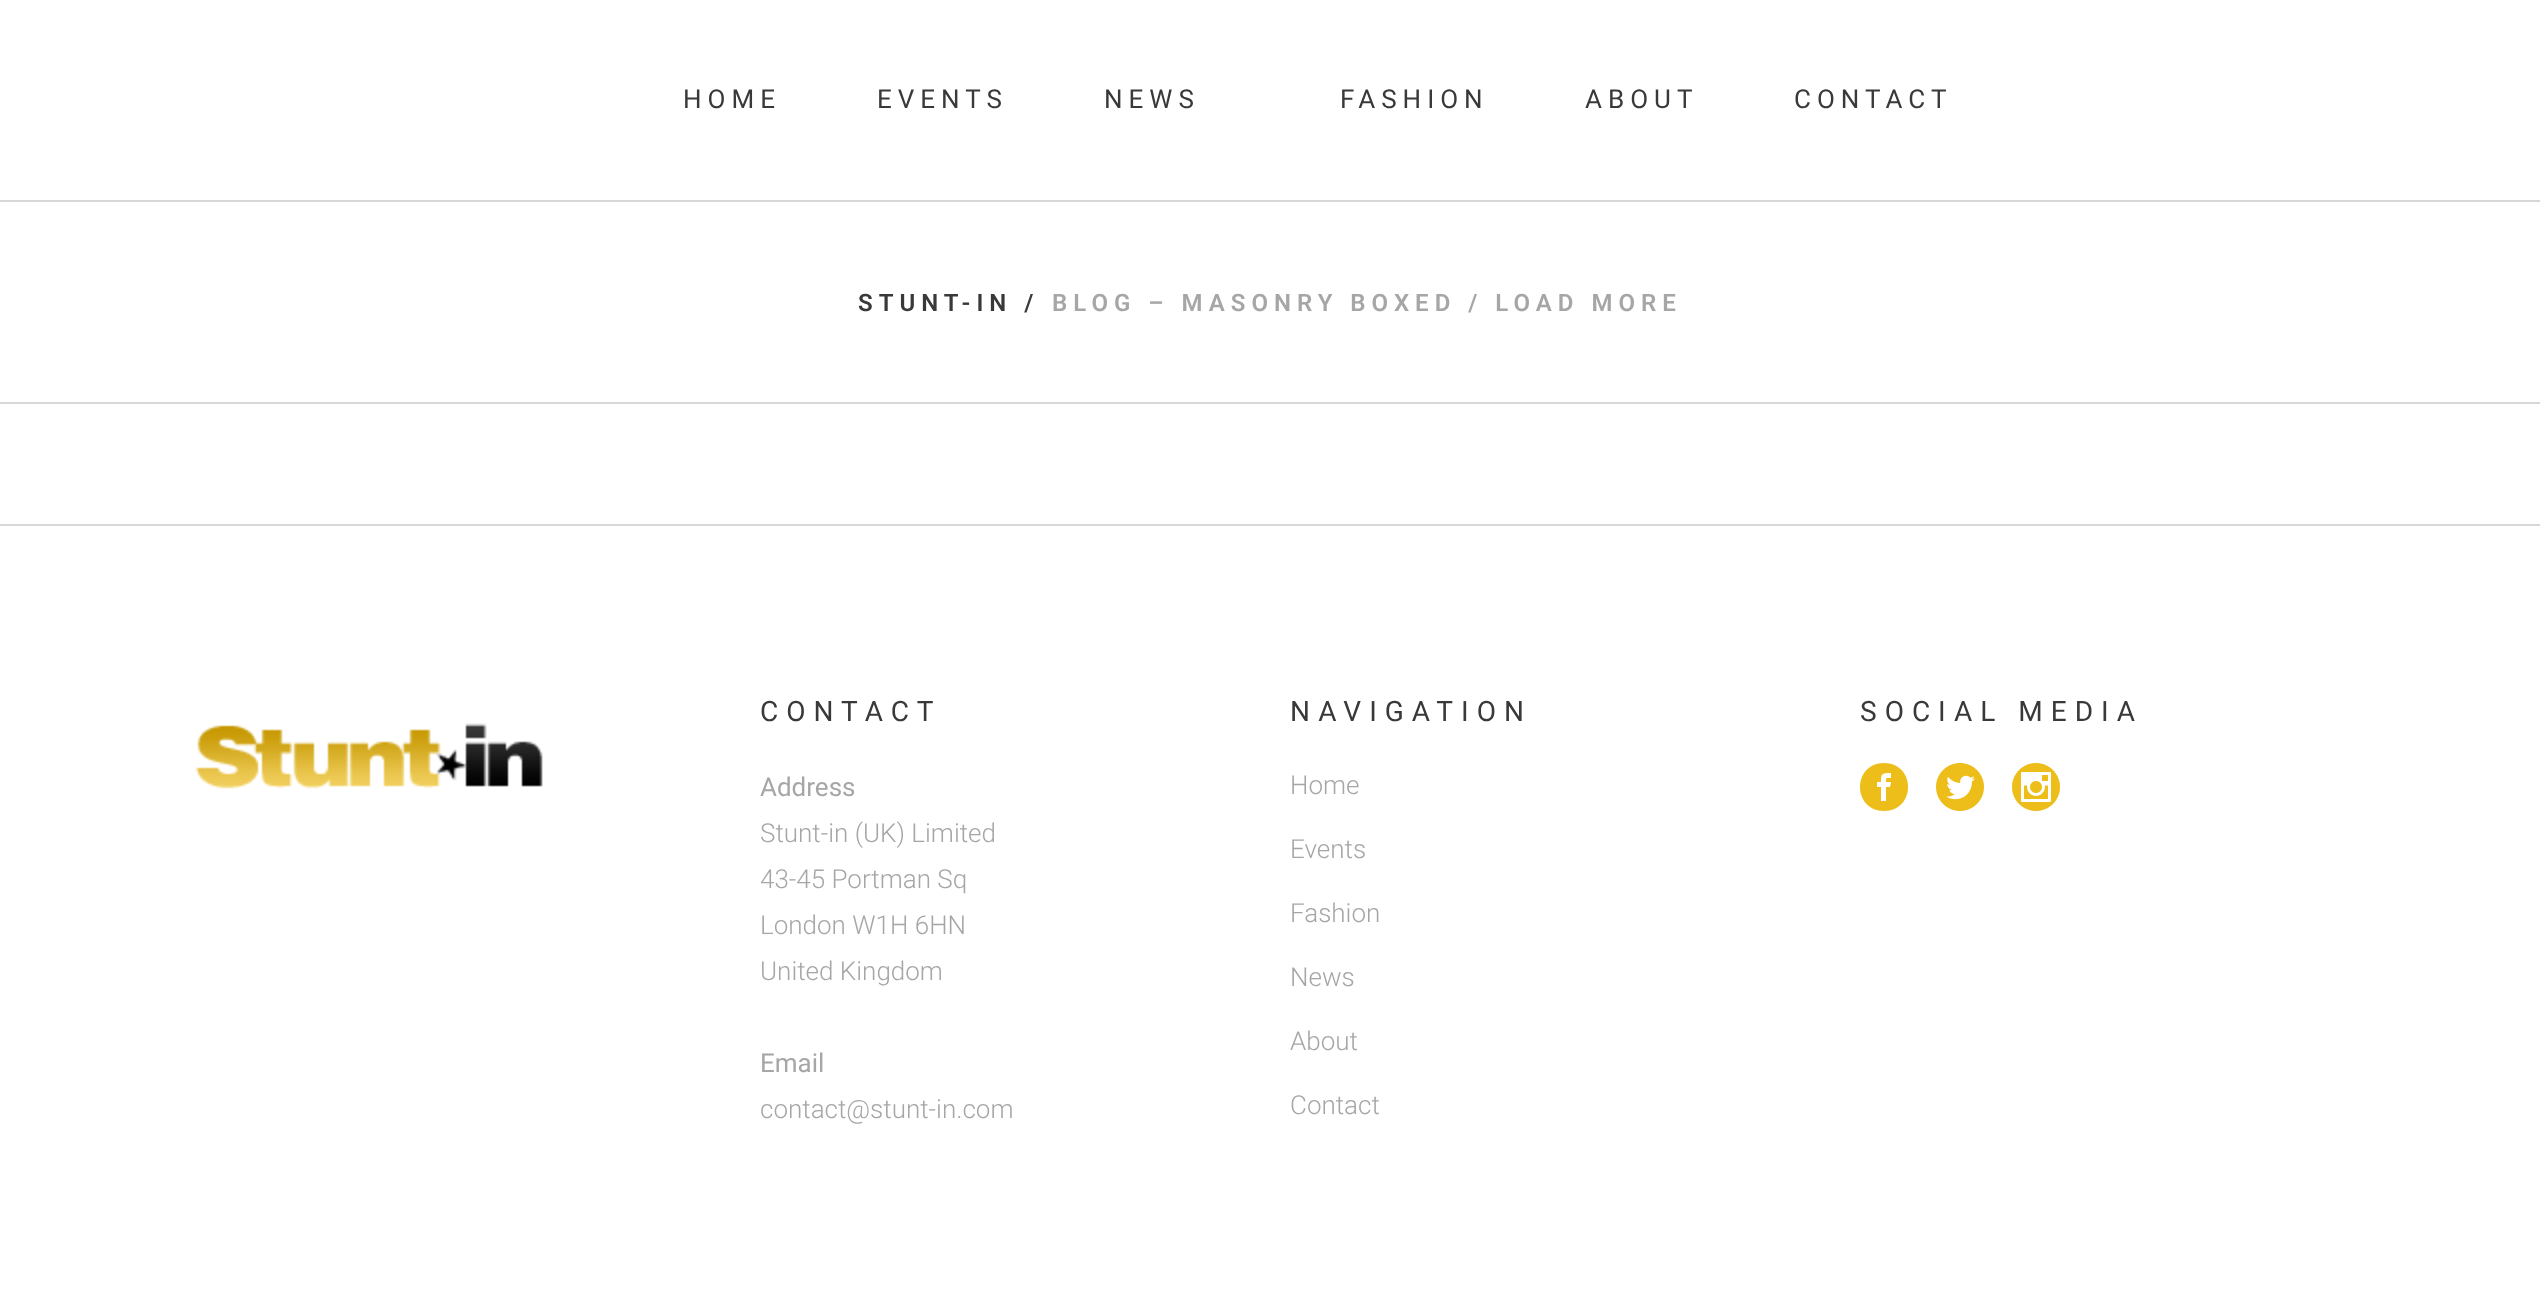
<svg xmlns="http://www.w3.org/2000/svg" width="2540" height="1300">
	<rect width="100%" height="100%" fill="#FFFFFF" />
	<rect x="0" y="200" width="2540" height="2" fill="#D7D7D7" />
	<g font-family="Roboto" font-size="26" letter-spacing="6" fill="#393939">
		<text x="683" y="108">HOME</text>
		<text x="877" y="108">EVENTS</text>
		<text x="1104" y="108">NEWS</text>
		<text x="1340" y="108">FASHION</text>
		<text x="1585" y="108">ABOUT</text>
		<text x="1794" y="108">CONTACT</text>
	</g>
	<rect x="0" y="402" width="2540" height="2" fill="#D7D7D7" />
	<text x="858" y="311" font-family="Roboto" font-size="24" font-weight="600" letter-spacing="6" fill="#393939">STUNT-IN /</text>
	<text x="1052" y="311" font-family="Roboto" font-size="24" font-weight="600" letter-spacing="6" fill="#A6A6A6">BLOG – MASONRY BOXED / LOAD MORE</text>
	<rect x="0" y="524" width="2540" height="2" fill="#D7D7D7" />
	<text x="760" y="721" font-family="Roboto" font-size="28" letter-spacing="8" fill="#393939">CONTACT</text>
	<text x="760" y="796" font-family="Roboto" font-size="26" fill="#A6A6A6">Address</text>
	<g font-family="Roboto" font-size="26" font-weight="300" fill="#A6A6A6">
		<text x="760" y="842">Stunt-in (UK) Limited</text>
		<text x="760" y="888">43-45 Portman Sq</text>
		<text x="760" y="934">London W1H 6HN</text>
		<text x="760" y="980">United Kingdom</text>
	</g>
	<text x="760" y="1072" font-family="Roboto" font-size="26" fill="#A6A6A6">Email</text>
	<text x="760" y="1118" font-family="Roboto" font-size="26" font-weight="300" fill="#A6A6A6">contact@stunt-in.com</text>
	<text x="1290" y="721" font-family="Roboto" font-size="28" letter-spacing="8" fill="#393939">NAVIGATION</text>
	<g font-family="Roboto" font-size="26" font-weight="300" fill="#A6A6A6">
		<text x="1290" y="794">Home</text>
		<text x="1290" y="858">Events</text>
		<text x="1290" y="922">Fashion</text>
		<text x="1290" y="986">News</text>
		<text x="1290" y="1050">About</text>
		<text x="1290" y="1114">Contact</text>
	</g>
	<text x="1860" y="721" font-family="Roboto" font-size="28" letter-spacing="8" fill="#393939">SOCIAL MEDIA</text>
	<path d="M1884 763C1916 763 1916 811 1884 811C1852 811 1852 763 1884 763ZM1890 787L1891 782H1886C1886 777 1886 778 1891 778V773C1882 773 1881 773 1881 782H1877V787H1881V801H1886V787Z" fill="#EDBD19" />
	<image x="1936" y="763" width="48" height="48" href="assets/img1.png" />
	<image x="2012" y="763" width="48" height="48" href="assets/img2.png" />
	<image x="195" y="723" width="348" height="66" href="assets/img3.png" />
</svg>
